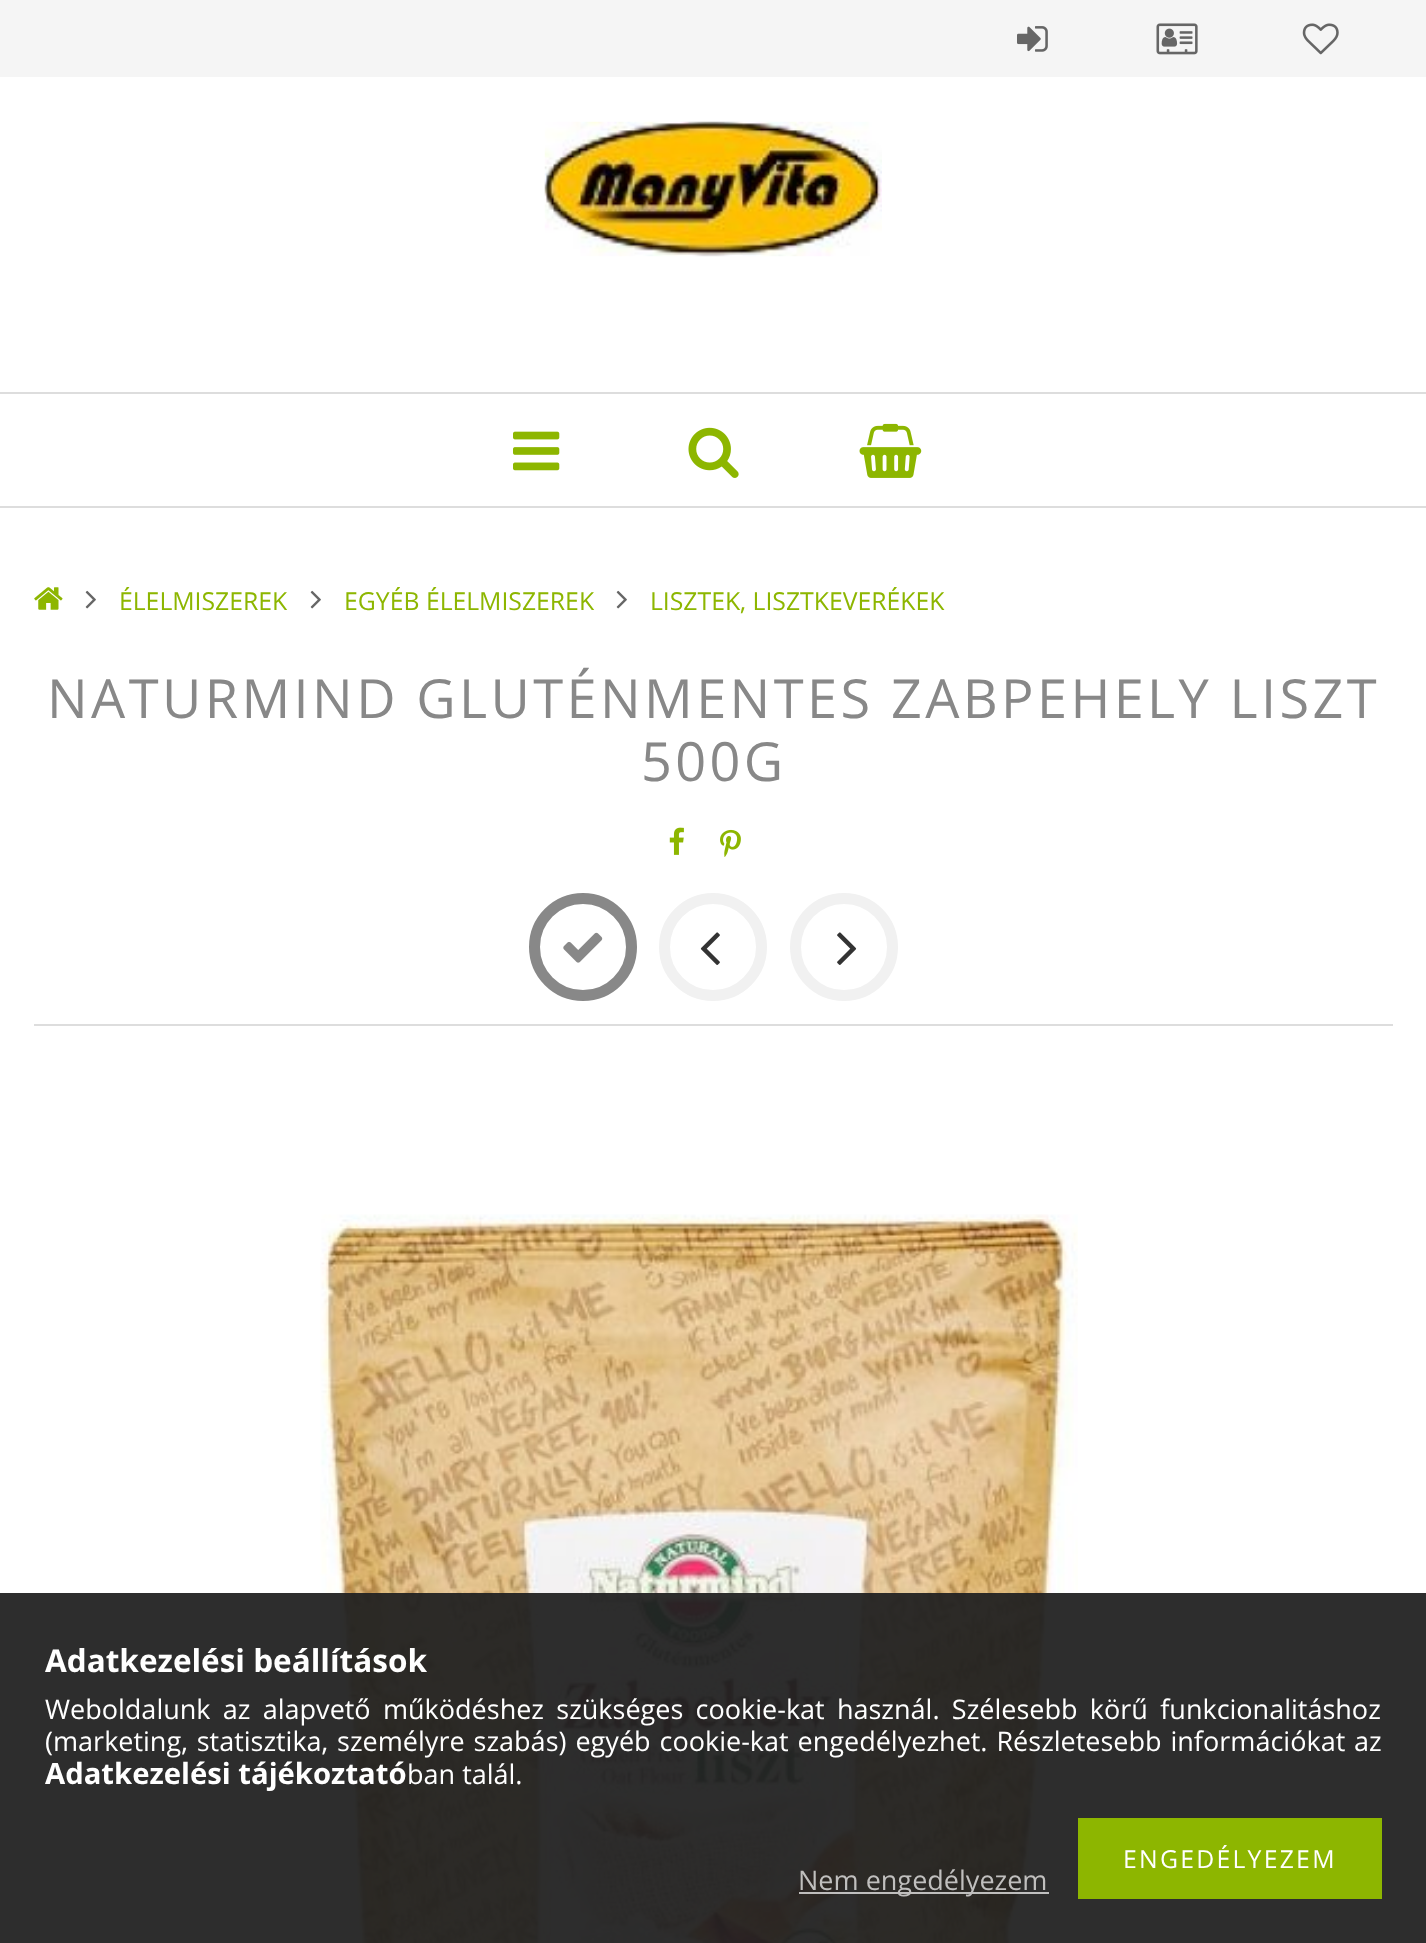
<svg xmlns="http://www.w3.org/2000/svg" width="1426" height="1943">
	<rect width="100%" height="100%" fill="#FFFFFF" />
	<rect x="0" y="0" width="1426" height="77" fill="#F5F5F5" />
	<image x="1017" y="26" width="31" height="26" href="assets/img1.png" />
	<image x="1156" y="23" width="42" height="32" href="assets/img2.png" />
	<image x="1302" y="23" width="37" height="32" href="assets/img3.png" />
	<image x="544" y="121" width="338" height="136" href="assets/img4.png" />
	<rect x="0" y="392" width="1426" height="2" fill="#DDDDDD" />
	<rect x="0" y="506" width="1426" height="2" fill="#DDDDDD" />
	<image x="513" y="431" width="47" height="40" href="assets/img5.png" />
	<image x="688" y="427" width="51" height="51" href="assets/img6.png" />
	<image x="859" y="423" width="63" height="55" href="assets/img7.png" />
	<image x="34" y="587" width="29" height="23" href="assets/img8.png" />
	<image x="85" y="590" width="11" height="19" href="assets/img9.png" />
	<text x="119" y="610" font-family="Open Sans" font-size="24.75" fill="#8DB600">ÉLELMISZEREK</text>
	<image x="310" y="590" width="11" height="19" href="assets/img9.png" />
	<text x="344" y="610" font-family="Open Sans" font-size="24.75" fill="#8DB600">EGYÉB ÉLELMISZEREK</text>
	<image x="616" y="590" width="11" height="19" href="assets/img9.png" />
	<text x="650" y="610" font-family="Open Sans" font-size="24.75" fill="#8DB600">LISZTEK, LISZTKEVERÉKEK</text>
	<rect x="34" y="1024" width="1359" height="2" fill="#DDDDDD" />
	<g font-family="Open Sans" font-size="54" letter-spacing="3.4" fill="#888888">
		<text x="47" y="718">NATURMIND GLUTÉNMENTES ZABPEHELY LISZT</text>
		<text x="641" y="781">500G</text>
	</g>
	<image x="669" y="827" width="15" height="28" href="assets/img10.png" />
	<image x="720" y="829" width="21" height="28" href="assets/img11.png" />
	<circle cx="583" cy="947" r="48.5" fill="none" stroke="#888888" stroke-width="11" />
	<image x="563" y="932" width="40" height="31" href="assets/img12.png" />
	<circle cx="713" cy="947" r="48.5" fill="none" stroke="#F1F1F1" stroke-width="11" />
	<image x="700" y="932" width="20" height="33" href="assets/img13.png" />
	<circle cx="844" cy="947" r="48.5" fill="none" stroke="#F1F1F1" stroke-width="11" />
	<image x="837" y="932" width="20" height="33" href="assets/img14.png" />
	<image x="320" y="1214" width="758" height="729" href="assets/img15.png" />
	<rect x="0" y="1593" width="1426" height="350" fill="#222222" fill-opacity="0.95" />
	<text x="45" y="1672" font-family="Open Sans" font-size="31.5" font-weight="700" fill="#FFFFFF">Adatkezelési beállítások</text>
	<g font-family="Open Sans" font-size="27" fill="#FFFFFF">
		<text x="45" y="1719" word-spacing="5.25">Weboldalunk az alapvető működéshez szükséges cookie-kat használ. Szélesebb körű funkcionalitáshoz</text>
		<text x="45" y="1751" word-spacing="1.9">(marketing, statisztika, személyre szabás) egyéb cookie-kat engedélyezhet. Részletesebb információkat az</text>
	</g>
	<text x="45" y="1784" font-family="Open Sans" font-size="29.25" font-weight="700" fill="#FFFFFF">Adatkezelési tájékoztató</text>
	<text x="407" y="1784" font-family="Open Sans" font-size="27" fill="#FFFFFF">ban talál.</text>
	<rect x="1078" y="1818" width="304" height="81" fill="#8DB600" />
	<text x="1123" y="1868" font-family="Open Sans" font-size="24.75" letter-spacing="2.25" fill="#FFFFFF">ENGEDÉLYEZEM</text>
	<rect x="799" y="1892" width="250" height="2" fill="#FFFFFF" fill-opacity="0.7" />
	<text x="798" y="1890" font-family="Open Sans" font-size="27" fill="#C0BFBE">Nem engedélyezem</text>
</svg>
